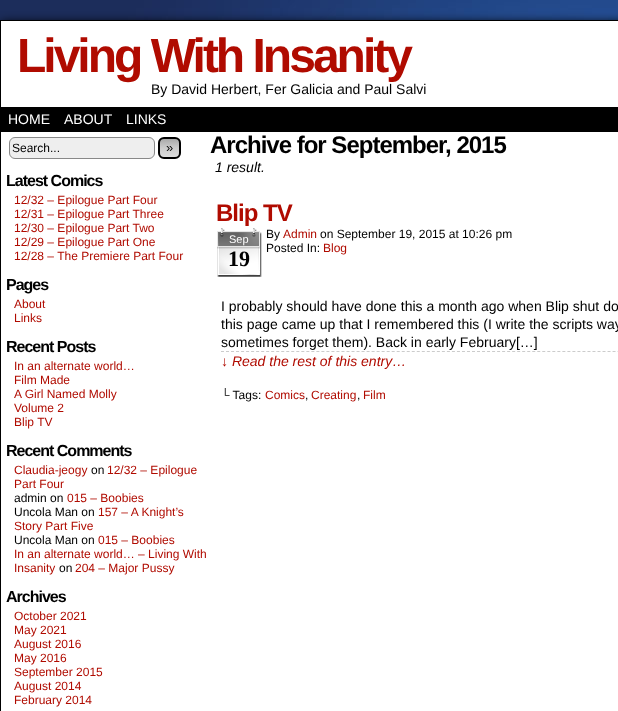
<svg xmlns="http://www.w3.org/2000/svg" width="618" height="711">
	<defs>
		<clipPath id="clip1"><rect x="158" y="137" width="23" height="22" rx="6" /></clipPath>
		<linearGradient id="g1" gradientUnits="userSpaceOnUse" x1="170" y1="139" x2="170" y2="157"><stop offset="0" stop-color="#AAAAAA" /><stop offset="0.5" stop-color="#CCCCCC" /><stop offset="1" stop-color="#DDDDDD" /></linearGradient>
	</defs>
	<rect width="100%" height="100%" fill="#FFFFFF" />
	<image x="0" y="0" width="618" height="20" href="assets/img1.png" />
	<rect x="1" y="22" width="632" height="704" fill="#000000" filter="blur(5px)" />
	<rect x="0.5" y="20.5" width="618" height="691" fill="#FFFFFF" stroke="#000000" />
	<text x="17" y="72" font-family="Liberation Sans" font-size="48" font-weight="700" letter-spacing="-3" fill="#B00B00">Living With Insanity</text>
	<text x="151" y="94" font-family="Liberation Sans" font-size="14" fill="#000000">By David Herbert, Fer Galicia and Paul Salvi</text>
	<rect x="1" y="107" width="617" height="25" fill="#000000" />
	<g font-family="Liberation Sans" font-size="14" fill="#FFFFFF">
		<text x="8" y="124">HOME</text>
		<text x="64" y="124">ABOUT</text>
		<text x="126" y="124">LINKS</text>
	</g>
	<rect x="9.5" y="137.5" width="145" height="21" rx="5.5" fill="#EEEEEE" stroke="#888888" />
	<text x="12" y="152" font-family="Liberation Sans" font-size="12" fill="#000000">Search...</text>
	<g clip-path="url(#clip1)">
		<rect x="158" y="139" width="23" height="18" fill="url(#g1)" />
	</g>
	<rect x="159" y="138" width="21" height="20" rx="5" fill="none" stroke="#000000" stroke-width="2" />
	<text x="166" y="152" font-family="Liberation Sans" font-size="13" fill="#000000">»</text>
	<text x="6" y="186" font-family="Liberation Sans" font-size="16" font-weight="700" letter-spacing="-1" fill="#000000">Latest Comics</text>
	<g font-family="Liberation Sans" font-size="12" fill="#B00B00">
		<text x="14" y="204">12/32 – Epilogue Part Four</text>
		<text x="14" y="218">12/31 – Epilogue Part Three</text>
		<text x="14" y="232">12/30 – Epilogue Part Two</text>
		<text x="14" y="246">12/29 – Epilogue Part One</text>
		<text x="14" y="260">12/28 – The Premiere Part Four</text>
	</g>
	<text x="6" y="290" font-family="Liberation Sans" font-size="16" font-weight="700" letter-spacing="-1" fill="#000000">Pages</text>
	<g font-family="Liberation Sans" font-size="12" fill="#B00B00">
		<text x="14" y="308">About</text>
		<text x="14" y="322">Links</text>
	</g>
	<text x="6" y="352" font-family="Liberation Sans" font-size="16" font-weight="700" letter-spacing="-1" fill="#000000">Recent Posts</text>
	<g font-family="Liberation Sans" font-size="12" fill="#B00B00">
		<text x="14" y="370">In an alternate world…</text>
		<text x="14" y="384">Film Made</text>
		<text x="14" y="398">A Girl Named Molly</text>
		<text x="14" y="412">Volume 2</text>
		<text x="14" y="426">Blip TV</text>
	</g>
	<text x="6" y="456" font-family="Liberation Sans" font-size="16" font-weight="700" letter-spacing="-1" fill="#000000">Recent Comments</text>
	<text x="14" y="474" font-family="Liberation Sans" font-size="12" fill="#B00B00">Claudia-jeogy</text>
	<text x="91" y="474" font-family="Liberation Sans" font-size="12" fill="#000000">on</text>
	<g font-family="Liberation Sans" font-size="12" fill="#B00B00">
		<text x="107" y="474">12/32 – Epilogue</text>
		<text x="14" y="488">Part Four</text>
	</g>
	<text x="14" y="502" font-family="Liberation Sans" font-size="12" fill="#000000">admin on</text>
	<text x="67" y="502" font-family="Liberation Sans" font-size="12" fill="#B00B00">015 – Boobies</text>
	<text x="14" y="516" font-family="Liberation Sans" font-size="12" fill="#000000">Uncola Man on</text>
	<g font-family="Liberation Sans" font-size="12" fill="#B00B00">
		<text x="98" y="516">157 – A Knight’s</text>
		<text x="14" y="530">Story Part Five</text>
	</g>
	<text x="14" y="544" font-family="Liberation Sans" font-size="12" fill="#000000">Uncola Man on</text>
	<g font-family="Liberation Sans" font-size="12" fill="#B00B00">
		<text x="98" y="544">015 – Boobies</text>
		<text x="14" y="558">In an alternate world… – Living With</text>
		<text x="14" y="572">Insanity</text>
	</g>
	<text x="59" y="572" font-family="Liberation Sans" font-size="12" fill="#000000">on</text>
	<text x="75" y="572" font-family="Liberation Sans" font-size="12" fill="#B00B00">204 – Major Pussy</text>
	<text x="6" y="602" font-family="Liberation Sans" font-size="16" font-weight="700" letter-spacing="-1" fill="#000000">Archives</text>
	<g font-family="Liberation Sans" font-size="12" fill="#B00B00">
		<text x="14" y="620">October 2021</text>
		<text x="14" y="634">May 2021</text>
		<text x="14" y="648">August 2016</text>
		<text x="14" y="662">May 2016</text>
		<text x="14" y="676">September 2015</text>
		<text x="14" y="690">August 2014</text>
		<text x="14" y="704">February 2014</text>
	</g>
	<text x="210" y="153" font-family="Liberation Sans" font-size="24" font-weight="700" letter-spacing="-1" fill="#000000">Archive for September, 2015</text>
	<text x="215" y="172" font-family="Liberation Sans" font-size="14" font-style="italic" fill="#000000">1 result.</text>
	<text x="216" y="221" font-family="Liberation Sans" font-size="24" font-weight="700" letter-spacing="-1" fill="#B00B00">Blip TV</text>
	<image x="217" y="228" width="45" height="49" href="assets/img2.png" />
	<text x="229" y="243" font-family="Liberation Sans" font-size="11" fill="#FFFFFF">Sep</text>
	<text x="228" y="266" font-family="Liberation Serif" font-size="22" font-weight="700" fill="#000000">19</text>
	<text x="266" y="238" font-family="Liberation Sans" font-size="12" fill="#000000">By</text>
	<text x="283" y="238" font-family="Liberation Sans" font-size="12" fill="#B00B00">Admin</text>
	<g font-family="Liberation Sans" font-size="12" fill="#000000">
		<text x="320" y="238">on September 19, 2015 at 10:26 pm</text>
		<text x="266" y="252">Posted In:</text>
	</g>
	<text x="323" y="252" font-family="Liberation Sans" font-size="12" fill="#B00B00">Blog</text>
	<g font-family="Liberation Sans" font-size="14" fill="#000000">
		<text x="221" y="311">I probably should have done this a month ago when Blip shut do</text>
		<text x="221" y="329">this page came up that I remembered this (I write the scripts way</text>
		<text x="221" y="347">sometimes forget them). Back in early February[…]</text>
	</g>
	<path d="M221 351.5H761" fill="none" stroke="#CCCCCC" stroke-dasharray="3 2.02" />
	<text x="221" y="366" font-family="Liberation Sans" font-size="14" font-style="italic" fill="#B00B00">↓ Read the rest of this entry…</text>
	<text x="221" y="399" font-family="Liberation Sans" font-size="12" fill="#000000">└ Tags:</text>
	<text x="265" y="399" font-family="Liberation Sans" font-size="12" fill="#B00B00">Comics</text>
	<text x="305" y="399" font-family="Liberation Sans" font-size="12" fill="#000000">,</text>
	<text x="311" y="399" font-family="Liberation Sans" font-size="12" fill="#B00B00">Creating</text>
	<text x="357" y="399" font-family="Liberation Sans" font-size="12" fill="#000000">,</text>
	<text x="363" y="399" font-family="Liberation Sans" font-size="12" fill="#B00B00">Film</text>
</svg>
